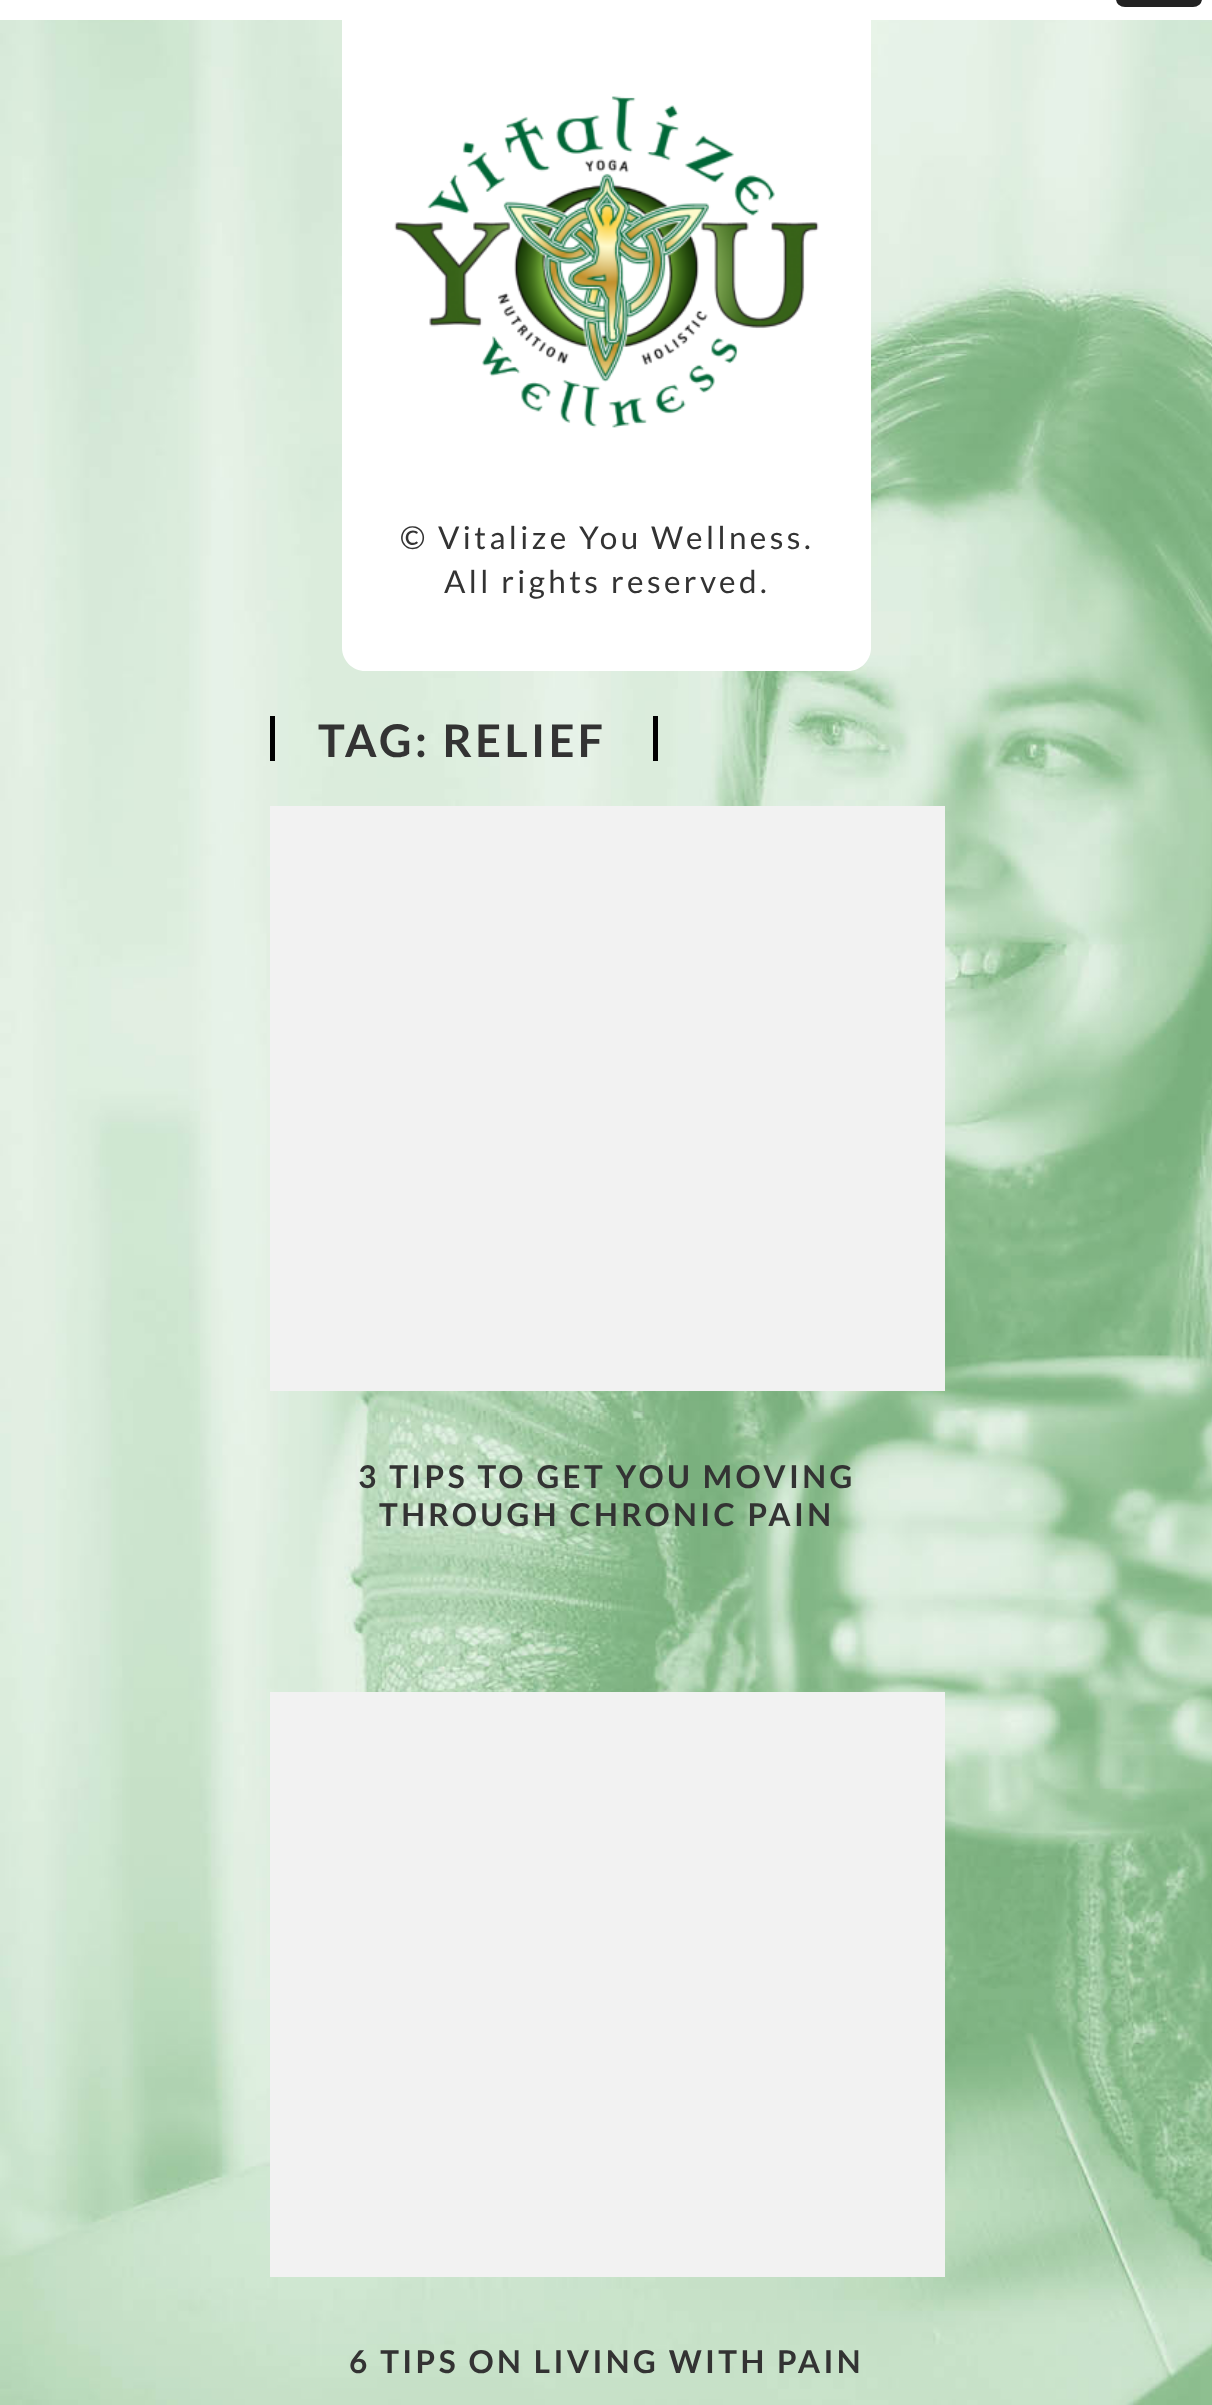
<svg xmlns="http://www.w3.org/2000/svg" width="1212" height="2405">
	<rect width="100%" height="100%" fill="#FFFFFF" />
	<image x="0" y="20" width="1212" height="2385" href="assets/img1.png" />
	<rect x="1116" y="-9" width="86" height="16" rx="9" fill="#222222" />
	<path d="M342 20H871V648C871 660.5 860.5 671 848 671H365C352.5 671 342 660.5 342 648Z" fill="#FFFFFF" />
	<image x="394" y="96" width="425" height="332" href="assets/img2.png" />
	<g font-family="Lato" font-size="31.5" letter-spacing="3.4" fill="#333333">
		<text x="400" y="549">© Vitalize You Wellness.</text>
		<text x="444" y="593">All rights reserved.</text>
	</g>
	<rect x="653" y="716" width="5" height="45" fill="#000000" />
	<rect x="270" y="716" width="5" height="45" fill="#000000" />
	<text x="318" y="757" font-family="Lato" font-size="45" font-weight="700" letter-spacing="3.4" fill="#333333">TAG: RELIEF</text>
	<rect x="270" y="806" width="675" height="585" fill="#F2F2F2" />
	<g font-family="Lato" font-size="31.5" font-weight="700" letter-spacing="3.4" fill="#333333">
		<text x="358" y="1488">3 TIPS TO GET YOU MOVING</text>
		<text x="379" y="1526">THROUGH CHRONIC PAIN</text>
	</g>
	<rect x="270" y="1692" width="675" height="585" fill="#F2F2F2" />
	<text x="349" y="2373" font-family="Lato" font-size="31.5" font-weight="700" letter-spacing="3.4" fill="#333333">6 TIPS ON LIVING WITH PAIN</text>
</svg>
